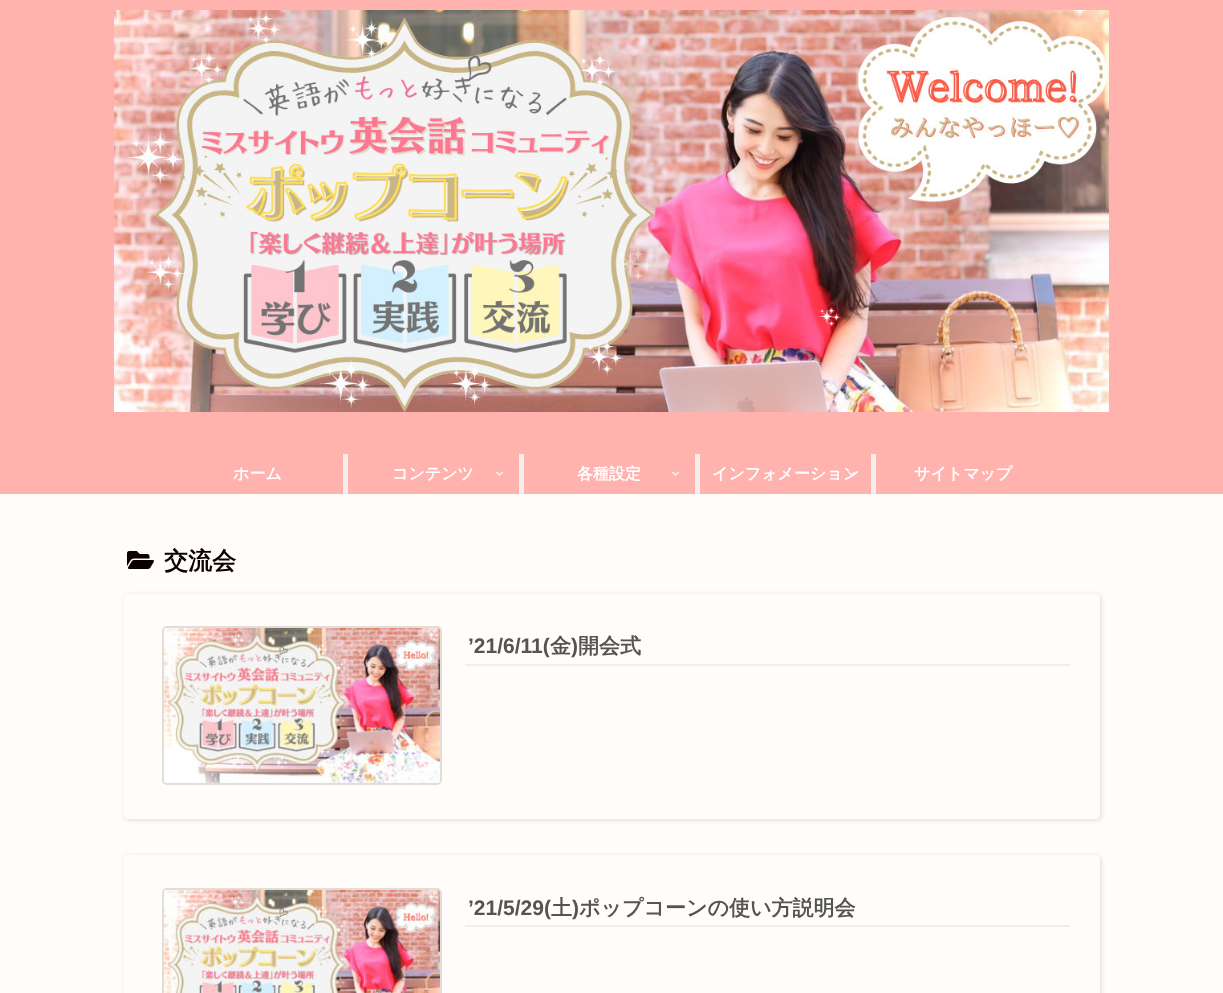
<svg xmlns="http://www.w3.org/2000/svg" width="1223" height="993">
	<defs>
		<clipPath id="clip1"><path d="M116 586H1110V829H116ZM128 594H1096C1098 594 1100 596 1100 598V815C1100 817 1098 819 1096 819H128C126 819 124 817 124 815V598C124 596 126 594 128 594Z" clip-rule="evenodd" /></clipPath>
		<clipPath id="clip2"><path d="M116 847H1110V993H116ZM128 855H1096C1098 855 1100 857 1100 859V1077C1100 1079 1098 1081 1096 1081H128C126 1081 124 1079 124 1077V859C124 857 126 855 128 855Z" clip-rule="evenodd" /></clipPath>
	</defs>
	<rect width="100%" height="100%" fill="#FFFCF9" />
	<rect x="0" y="0" width="1223" height="494" fill="#FFB2AE" />
	<image x="114" y="10" width="995" height="402" href="assets/img1.png" />
	<rect x="343" y="454" width="5" height="40" fill="#F3EEE9" />
	<text x="233" y="479" font-family="WenQuanYi Zen Hei" font-size="16" font-weight="700" fill="#FFFFFF">ホーム</text>
	<rect x="519" y="454" width="5" height="40" fill="#F3EEE9" />
	<text x="392" y="479" font-family="WenQuanYi Zen Hei" font-size="16" font-weight="700" fill="#FFFFFF">コンテンツ</text>
	<image x="496" y="471" width="7" height="5" href="assets/img2.png" />
	<rect x="695" y="454" width="5" height="40" fill="#F3EEE9" />
	<text x="577" y="479" font-family="WenQuanYi Zen Hei" font-size="16" font-weight="700" fill="#FFFFFF">各種設定</text>
	<image x="672" y="471" width="7" height="5" href="assets/img2.png" />
	<rect x="871" y="454" width="5" height="40" fill="#F3EEE9" />
	<text x="712" y="479" font-family="WenQuanYi Zen Hei" font-size="16" font-weight="700" fill="#FFFFFF">インフォメーション</text>
	<image x="848" y="471" width="7" height="5" href="assets/img3.png" />
	<text x="914" y="479" font-family="WenQuanYi Zen Hei" font-size="16" font-weight="700" fill="#FFFFFF">サイトマップ</text>
	<image x="127" y="551" width="27" height="18" href="assets/img4.png" />
	<text x="164" y="569" font-family="WenQuanYi Zen Hei" font-size="24" font-weight="700" fill="#0A0000">交流会</text>
	<g clip-path="url(#clip1)">
		<rect x="125" y="595" width="976" height="225" rx="4" fill="#000000" fill-opacity="0.13" filter="blur(2.5px)" />
	</g>
	<rect x="163" y="627" width="278" height="157" rx="4" fill="none" stroke="#E3DDD7" stroke-width="2" />
	<image x="164" y="628" width="276" height="155" href="assets/img5.png" />
	<rect x="465" y="664" width="605" height="2" fill="#F3EEE7" />
	<text x="468" y="653" font-family="Liberation Sans" font-size="21" font-weight="700" fill="#545454">’21/6/11(</text>
	<text x="550" y="653" font-family="WenQuanYi Zen Hei" font-size="21" font-weight="700" fill="#545454">金</text>
	<text x="571" y="653" font-family="Liberation Sans" font-size="21" font-weight="700" fill="#545454">)</text>
	<text x="578" y="653" font-family="WenQuanYi Zen Hei" font-size="21" font-weight="700" fill="#545454">開会式</text>
	<g clip-path="url(#clip2)">
		<rect x="125" y="856" width="976" height="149" rx="4" fill="#000000" fill-opacity="0.13" filter="blur(2.5px)" />
	</g>
	<rect x="163" y="889" width="278" height="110" rx="4" fill="none" stroke="#E3DDD7" stroke-width="2" />
	<image x="164" y="890" width="276" height="103" href="assets/img6.png" />
	<rect x="465" y="925" width="605" height="2" fill="#F3EEE7" />
	<text x="468" y="915" font-family="Liberation Sans" font-size="21" font-weight="700" fill="#545454">’21/5/29(</text>
	<text x="551" y="915" font-family="WenQuanYi Zen Hei" font-size="21" font-weight="700" fill="#545454">土</text>
	<text x="572" y="915" font-family="Liberation Sans" font-size="21" font-weight="700" fill="#545454">)</text>
	<text x="579" y="915" font-family="WenQuanYi Zen Hei" font-size="21" font-weight="700" fill="#545454">ポップコーンの使い方説明会</text>
</svg>
